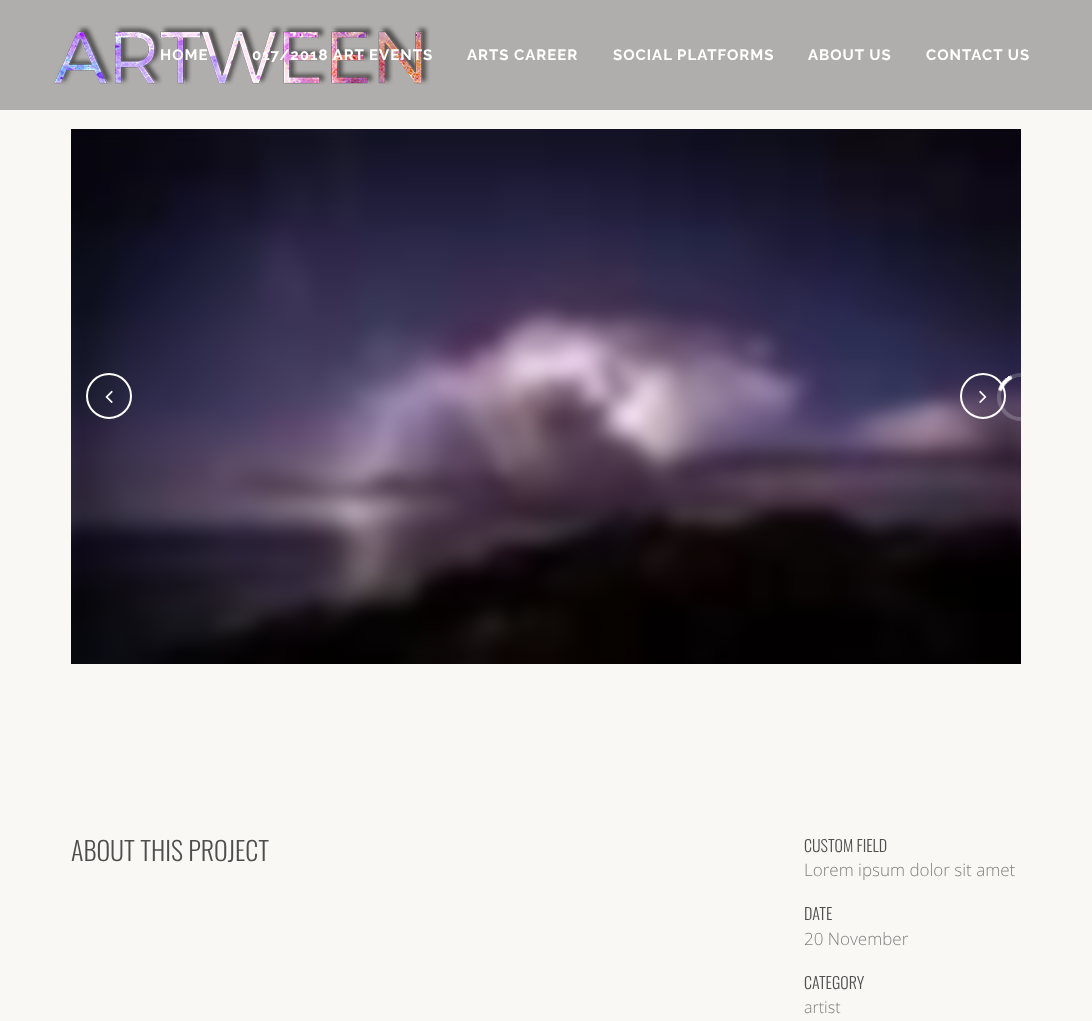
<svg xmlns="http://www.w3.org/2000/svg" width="1092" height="1021">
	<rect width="100%" height="100%" fill="#F9F8F5" />
	<rect x="0" y="0" width="1092" height="110" fill="#AFAEAC" />
	<image x="54" y="25" width="376" height="60" href="assets/img1.png" />
	<g font-family="Raleway" font-size="15" font-weight="700" letter-spacing="1" fill="#FFFFFF">
		<text x="160" y="60">HOME</text>
		<text x="252" y="60">017/2018 ART EVENTS</text>
		<text x="467" y="60">ARTS CAREER</text>
		<text x="613" y="60">SOCIAL PLATFORMS</text>
		<text x="808" y="60">ABOUT US</text>
		<text x="926" y="60">CONTACT US</text>
	</g>
	<image x="71" y="129" width="950" height="535" href="assets/img2.png" />
	<circle cx="109" cy="396" r="22" fill="none" stroke="#FFFFFF" stroke-width="2" />
	<image x="105" y="390" width="8" height="13" href="assets/img3.png" />
	<circle cx="983" cy="396" r="22" fill="none" stroke="#FFFFFF" stroke-width="2" />
	<image x="979" y="390" width="8" height="13" href="assets/img4.png" />
	<text x="71" y="861" font-family="Oswald" font-size="26" font-weight="300" fill="#4E4E4E">ABOUT THIS PROJECT</text>
	<text x="804" y="852" font-family="Oswald" font-size="16" font-weight="300" fill="#4E4E4E">CUSTOM FIELD</text>
	<text x="804" y="876" font-family="Open Sans" font-size="17" font-weight="300" fill="#818181">Lorem ipsum dolor sit amet</text>
	<text x="804" y="920" font-family="Oswald" font-size="16" font-weight="300" fill="#4E4E4E">DATE</text>
	<text x="804" y="945" font-family="Open Sans" font-size="17" font-weight="300" fill="#818181">20 November</text>
	<text x="804" y="989" font-family="Oswald" font-size="16" font-weight="300" fill="#4E4E4E">CATEGORY</text>
	<text x="804" y="1013" font-family="Open Sans" font-size="16" font-weight="300" fill="#818181">artist</text>
</svg>
